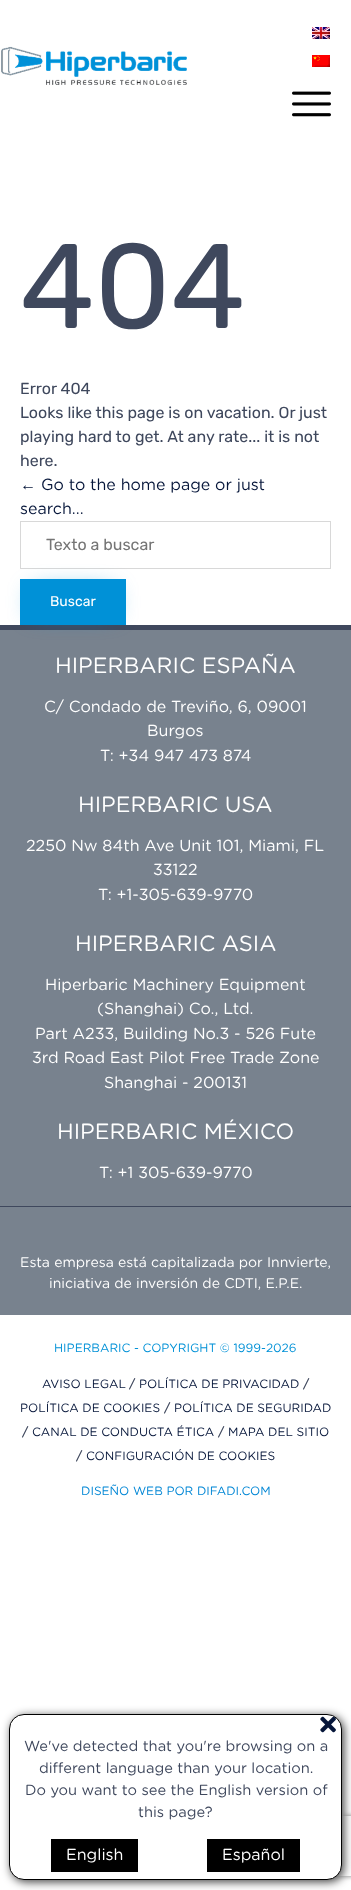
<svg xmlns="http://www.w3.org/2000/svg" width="351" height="1890">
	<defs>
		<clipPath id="clip1"><path d="M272 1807H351V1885H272ZM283 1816H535C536 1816 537 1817 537 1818V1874C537 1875 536 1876 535 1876H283C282 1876 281 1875 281 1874V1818C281 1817 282 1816 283 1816Z" clip-rule="evenodd" /></clipPath>
	</defs>
	<rect width="100%" height="100%" fill="#FFFFFF" />
	<image x="1" y="46" width="186" height="39" href="assets/img1.png" />
	<image x="312" y="27" width="18" height="12" href="assets/img2.png" />
	<image x="312" y="55" width="18" height="12" href="assets/img3.png" />
	<image x="292" y="91" width="39" height="26" href="assets/img4.png" />
	<text x="20" y="328" font-family="Rubik" font-size="120" fill="#3F485D">404</text>
	<g font-family="Rubik" font-size="16" fill="#3F485D">
		<text x="20" y="394">Error 404</text>
		<text x="20" y="418">Looks like this page is on vacation. Or just</text>
		<text x="20" y="442">playing hard to get. At any rate... it is not</text>
		<text x="20" y="466">here.</text>
	</g>
	<text x="20" y="490" font-family="Liberation Serif" font-size="16" fill="#06163A">←</text>
	<g font-family="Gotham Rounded" font-size="16" fill="#06163A">
		<text x="41" y="490">Go to the home page or just</text>
		<text x="20" y="514">search...</text>
	</g>
	<rect x="20.5" y="521.5" width="310" height="47" fill="none" stroke="#D8D8D8" />
	<text x="46" y="550" font-family="Rubik" font-size="16" fill="#757575">Texto a buscar</text>
	<rect x="0" y="630" width="351" height="576" fill="#78828E" />
	<rect x="0" y="625" width="351" height="5" fill="#3F485D" />
	<rect x="34" y="593" width="78" height="18" fill="#0091D7" filter="blur(12.5px)" />
	<rect x="20" y="579" width="106" height="46" fill="#0091D7" />
	<text x="50" y="606" font-family="Rubik" font-size="14" fill="#FFFFFF">Buscar</text>
	<rect x="0" y="1206" width="351" height="1" fill="#3F485D" />
	<text x="55" y="673" font-family="Gotham Rounded" font-size="22" fill="#FFFFFF">HIPERBARIC ESPAÑA</text>
	<g font-family="Gotham Rounded" font-size="16" fill="#FFFFFF">
		<text x="44" y="712">C/ Condado de Treviño, 6, 09001</text>
		<text x="147" y="736">Burgos</text>
		<text x="100" y="761">T: +34 947 473 874</text>
	</g>
	<text x="78" y="812" font-family="Gotham Rounded" font-size="22" fill="#FFFFFF">HIPERBARIC USA</text>
	<g font-family="Gotham Rounded" font-size="16" fill="#FFFFFF">
		<text x="26" y="851">2250 Nw 84th Ave Unit 101, Miami, FL</text>
		<text x="153" y="875">33122</text>
		<text x="98" y="900">T: +1-305-639-9770</text>
	</g>
	<text x="75" y="951" font-family="Gotham Rounded" font-size="22" fill="#FFFFFF">HIPERBARIC ASIA</text>
	<g font-family="Gotham Rounded" font-size="16" fill="#FFFFFF">
		<text x="45" y="990">Hiperbaric Machinery Equipment</text>
		<text x="97" y="1014">(Shanghai) Co., Ltd.</text>
		<text x="35" y="1039">Part A233, Building No.3 - 526 Fute</text>
		<text x="32" y="1063">3rd Road East Pilot Free Trade Zone</text>
		<text x="104" y="1088">Shanghai - 200131</text>
	</g>
	<text x="57" y="1139" font-family="Gotham Rounded" font-size="22" fill="#FFFFFF">HIPERBARIC MÉXICO</text>
	<text x="99" y="1178" font-family="Gotham Rounded" font-size="16" fill="#FFFFFF">T: +1 305-639-9770</text>
	<rect x="0" y="1207" width="351" height="108" fill="#78828E" />
	<g font-family="Gotham Rounded" font-size="14" fill="#FFFFFF">
		<text x="20" y="1267">Esta empresa está capitalizada por Innvierte,</text>
		<text x="49" y="1288">iniciativa de inversión de CDTI, E.P.E.</text>
	</g>
	<text x="54" y="1352" font-family="Gotham Rounded" font-size="12" fill="#0091D7">HIPERBARIC - COPYRIGHT © 1999-2026</text>
	<text x="42" y="1388" font-family="Gotham Rounded" font-size="12" fill="#06163A">AVISO LEGAL</text>
	<text x="129" y="1388" font-family="Gotham Rounded" font-size="12" font-weight="700" fill="#3F485D">/</text>
	<text x="139" y="1388" font-family="Gotham Rounded" font-size="12" fill="#06163A">POLÍTICA DE PRIVACIDAD</text>
	<text x="303" y="1388" font-family="Gotham Rounded" font-size="12" font-weight="700" fill="#3F485D">/</text>
	<text x="20" y="1412" font-family="Gotham Rounded" font-size="12" fill="#06163A">POLÍTICA DE COOKIES</text>
	<text x="164" y="1412" font-family="Gotham Rounded" font-size="12" font-weight="700" fill="#3F485D">/</text>
	<text x="174" y="1412" font-family="Gotham Rounded" font-size="12" fill="#06163A">POLÍTICA DE SEGURIDAD</text>
	<text x="22" y="1436" font-family="Gotham Rounded" font-size="12" font-weight="700" fill="#3F485D">/</text>
	<text x="32" y="1436" font-family="Gotham Rounded" font-size="12" fill="#06163A">CANAL DE CONDUCTA ÉTICA</text>
	<text x="218" y="1436" font-family="Gotham Rounded" font-size="12" font-weight="700" fill="#3F485D">/</text>
	<text x="228" y="1436" font-family="Gotham Rounded" font-size="12" fill="#06163A">MAPA DEL SITIO</text>
	<text x="76" y="1460" font-family="Gotham Rounded" font-size="12" font-weight="700" fill="#3F485D">/</text>
	<text x="86" y="1460" font-family="Gotham Rounded" font-size="12" fill="#06163A">CONFIGURACIÓN DE COOKIES</text>
	<text x="81" y="1495" font-family="Gotham Rounded" font-size="12" fill="#0086D5">DISEÑO WEB POR DIFADI.COM</text>
	<rect x="11" y="1716" width="333" height="166" rx="15" fill="#000000" fill-opacity="0.75" filter="blur(5px)" />
	<g clip-path="url(#clip1)">
		<rect x="281" y="1816" width="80" height="60" rx="2" fill="#808080" filter="blur(2.5px)" />
	</g>
	<rect x="9.5" y="1714.5" width="332" height="165" rx="14.5" fill="#FFFFFF" stroke="#000000" />
	<image x="320" y="1716" width="16" height="17" href="assets/img5.png" />
	<g font-family="Gotham Rounded" font-size="14.7" fill="#3F485D">
		<text x="24" y="1751">We've detected that you're browsing on a</text>
		<text x="39" y="1773">different language than your location.</text>
		<text x="25" y="1795">Do you want to see the English version of</text>
		<text x="138" y="1817">this page?</text>
	</g>
	<rect x="51" y="1839" width="87" height="33" fill="#000000" />
	<text x="66" y="1860" font-family="Gotham Rounded" font-size="16" fill="#FFFFFF">English</text>
	<rect x="207" y="1839" width="93" height="33" fill="#000000" />
	<text x="222" y="1860" font-family="Gotham Rounded" font-size="16" fill="#FFFFFF">Español</text>
</svg>
